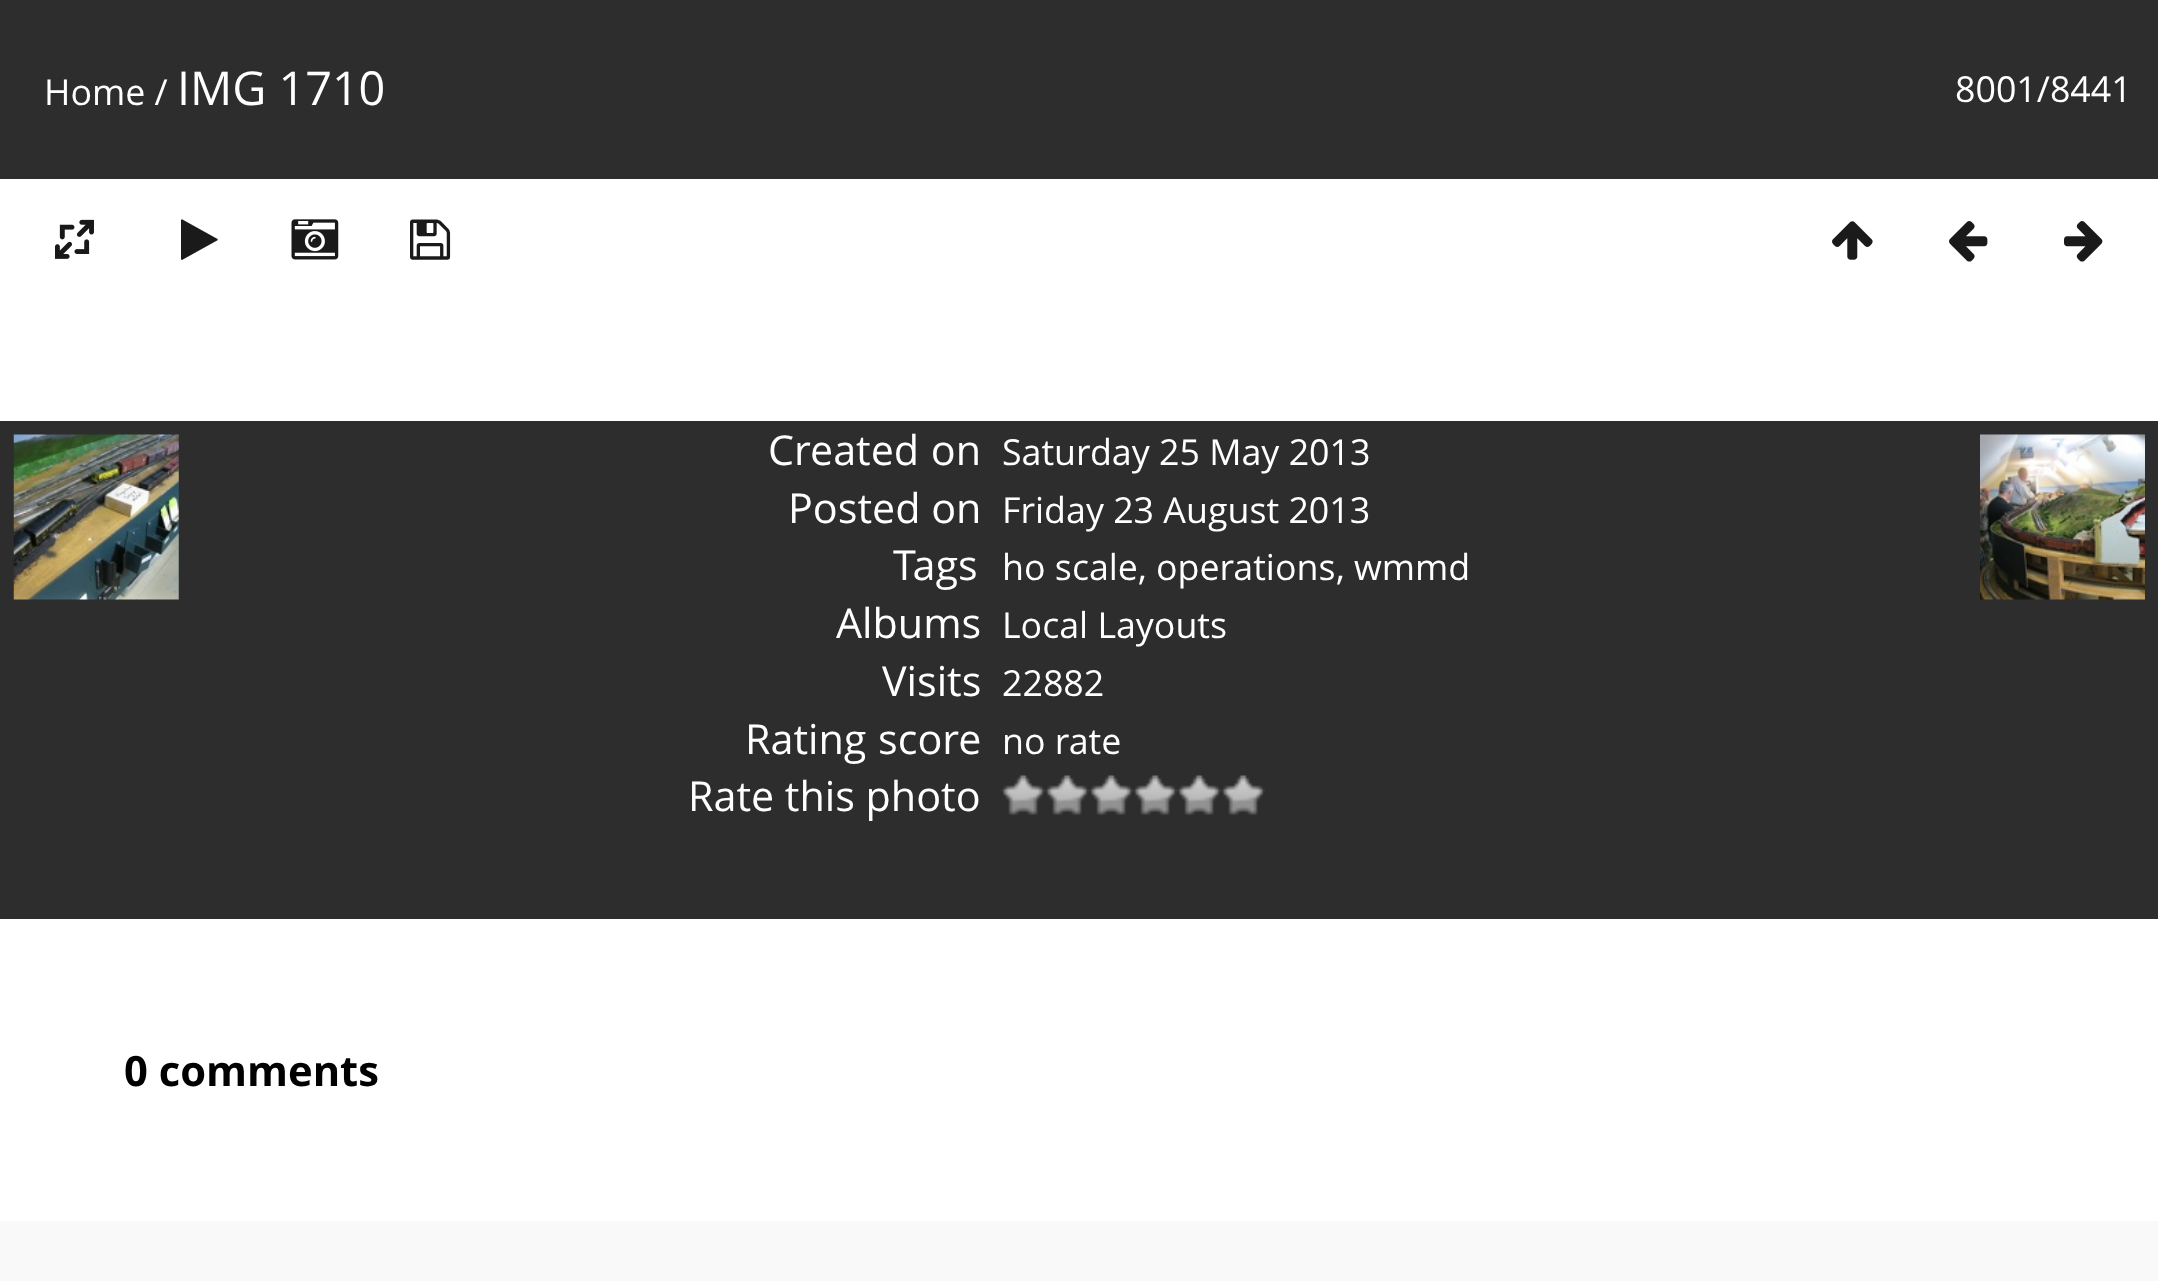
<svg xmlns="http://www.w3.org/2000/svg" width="2158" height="1281">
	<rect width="100%" height="100%" fill="#FFFFFF" />
	<rect x="0" y="0" width="2158" height="179" fill="#2D2D2D" />
	<text x="44" y="105" font-family="Open Sans" font-size="35.75" fill="#FFFFFF">Home /</text>
	<text x="177" y="105" font-family="Open Sans" font-size="46.75" fill="#FFFFFF">IMG 1710</text>
	<text x="1955" y="102" font-family="Open Sans" font-size="35.75" fill="#FFFFFF">8001/8441</text>
	<image x="55" y="219" width="39" height="40" href="assets/img1.png" />
	<text x="181" y="256" font-family="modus" font-size="46.75" fill="#1A1A1A">▶</text>
	<image x="291" y="219" width="48" height="41" href="assets/img2.png" />
	<g font-family="modus" font-size="46.75" fill="#1A1A1A">
		<text x="410" y="256">💾</text>
		<text x="1832" y="256">↑</text>
		<text x="1949" y="256">←</text>
		<text x="2064" y="256">→</text>
	</g>
	<rect x="0" y="421" width="2158" height="498" fill="#2D2D2D" />
	<text x="768" y="465" word-spacing="1" font-family="Open Sans" font-size="41.25" fill="#FFFFFF">Created on</text>
	<text x="1002" y="465" font-family="Open Sans" font-size="35.75" fill="#FFFFFF">Saturday 25 May 2013</text>
	<text x="788" y="523" font-family="Open Sans" font-size="41.25" fill="#FFFFFF">Posted on</text>
	<text x="1002" y="523" font-family="Open Sans" font-size="35.75" fill="#FFFFFF">Friday 23 August 2013</text>
	<text x="893" y="580" font-family="Open Sans" font-size="41.25" fill="#FFFFFF">Tags</text>
	<g font-family="Open Sans" font-size="35.75" fill="#FFFFFF">
		<text x="1002" y="580">ho scale, operations</text>
		<text x="1336" y="580">, wmmd</text>
	</g>
	<text x="836" y="638" font-family="Open Sans" font-size="41.25" fill="#FFFFFF">Albums</text>
	<text x="1002" y="638" font-family="Open Sans" font-size="35.75" fill="#FFFFFF">Local Layouts</text>
	<text x="882" y="696" font-family="Open Sans" font-size="41.25" fill="#FFFFFF">Visits</text>
	<text x="1002" y="696" font-family="Open Sans" font-size="35.75" fill="#FFFFFF">22882</text>
	<text x="745" y="754" word-spacing="1" font-family="Open Sans" font-size="41.25" fill="#FFFFFF">Rating score</text>
	<text x="1002" y="754" font-family="Open Sans" font-size="35.75" fill="#FFFFFF">no rate</text>
	<text x="688" y="811" font-family="Open Sans" font-size="41.25" fill="#FFFFFF">Rate this photo</text>
	<image x="1001" y="775" width="44" height="40" href="assets/img3.png" />
	<image x="1045" y="775" width="44" height="40" href="assets/img4.png" />
	<image x="1089" y="775" width="44" height="40" href="assets/img4.png" />
	<image x="1133" y="775" width="44" height="40" href="assets/img5.png" />
	<image x="1177" y="775" width="44" height="40" href="assets/img5.png" />
	<image x="1221" y="775" width="44" height="40" href="assets/img6.png" />
	<image x="13" y="434" width="166" height="166" href="assets/img7.png" />
	<image x="1980" y="434" width="165" height="166" href="assets/img8.png" />
	<text x="124" y="1086" font-family="Open Sans" font-size="41.75" font-weight="700" fill="#000000">0 comments</text>
	<rect x="0" y="1221" width="2158" height="60" fill="#F9F9F9" />
</svg>
